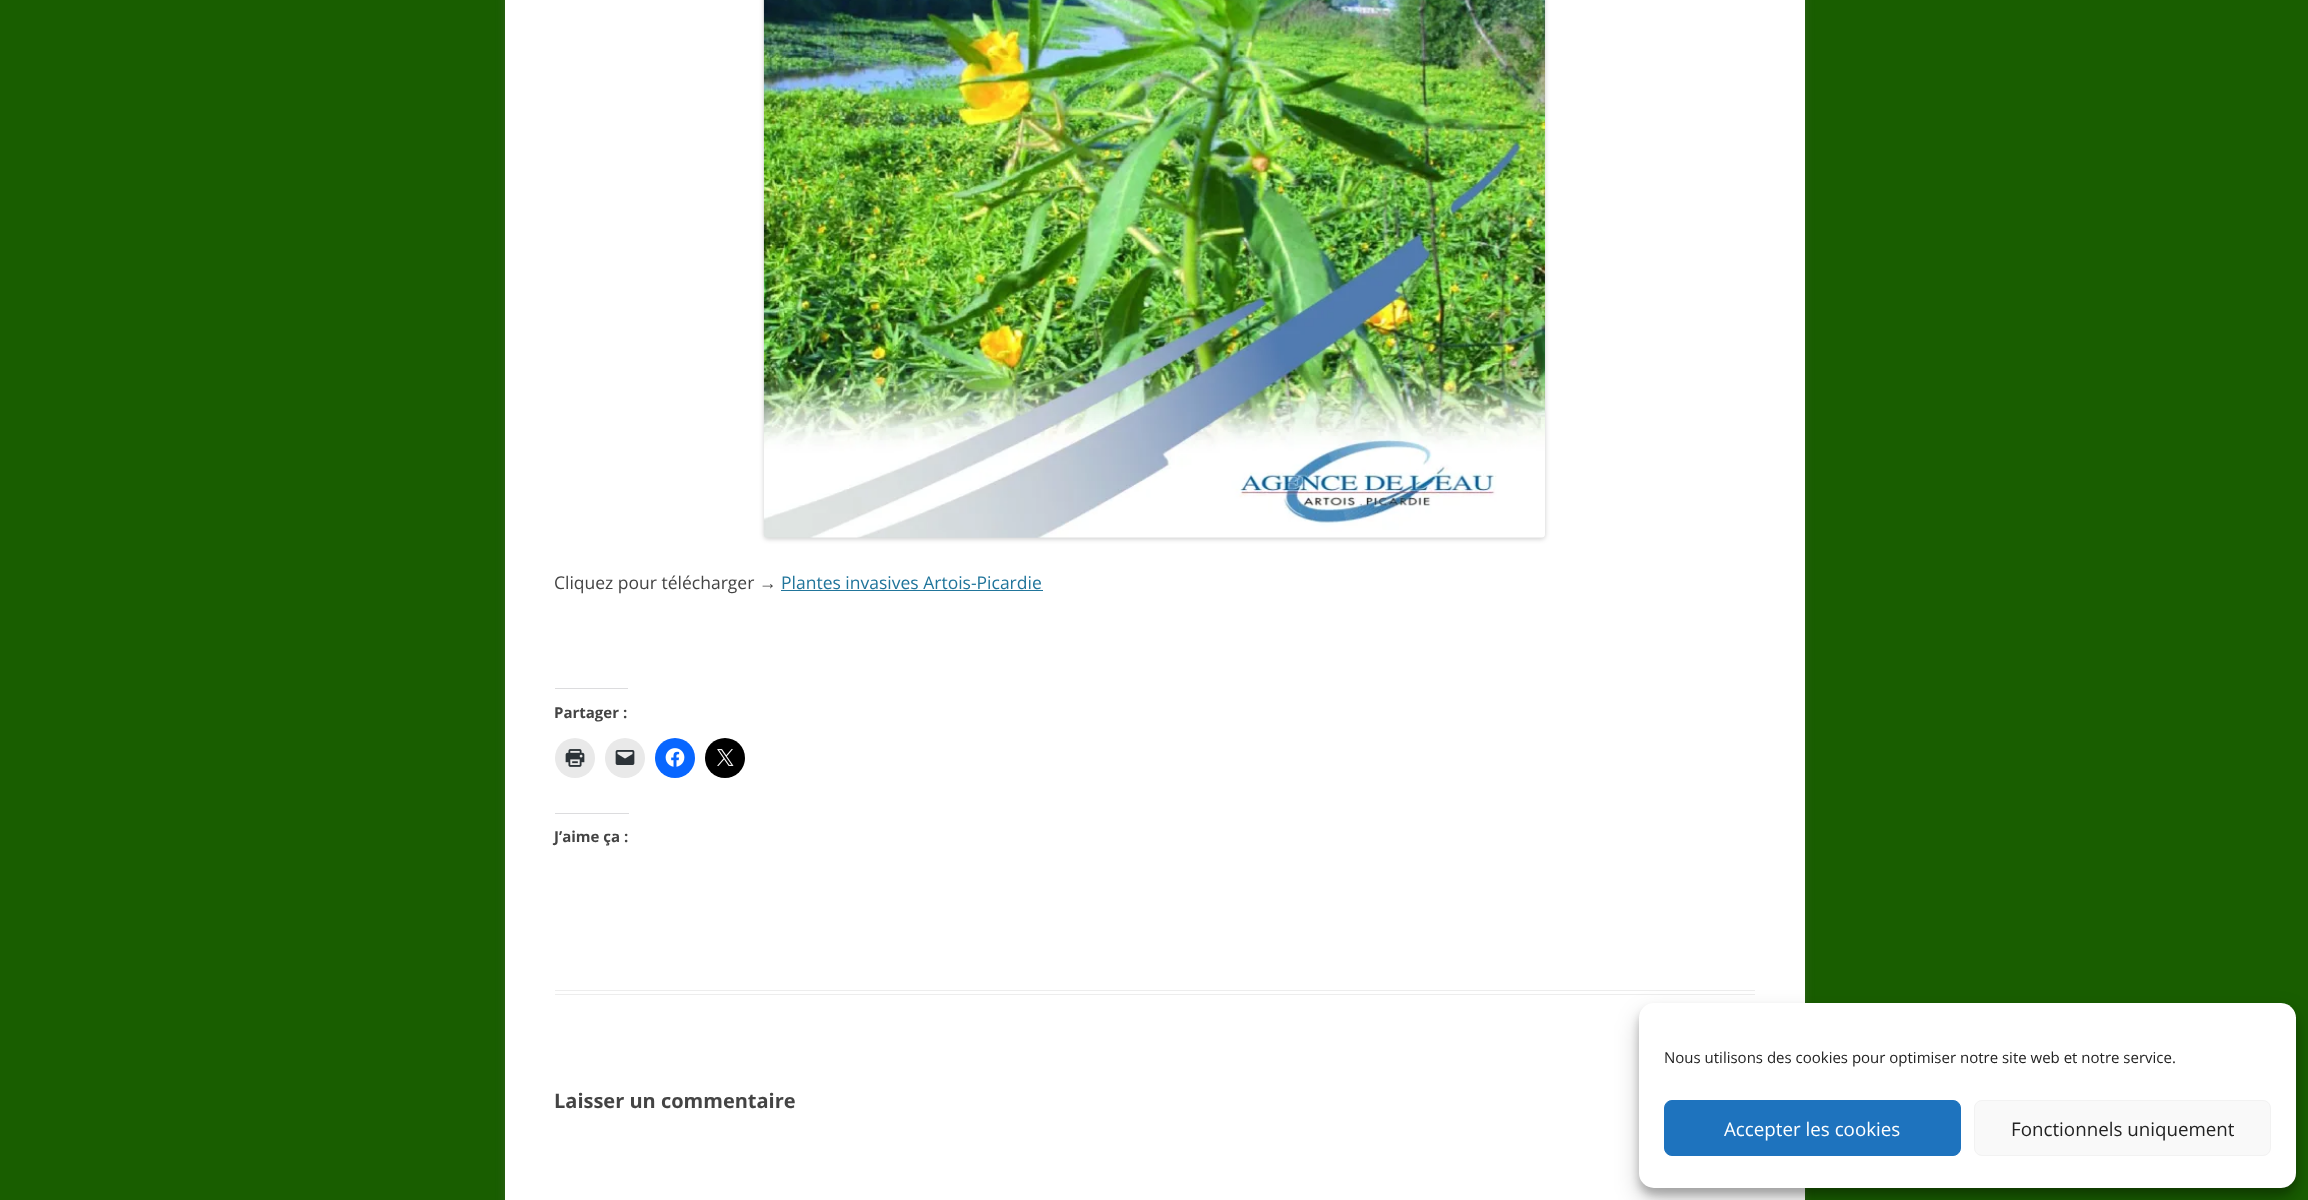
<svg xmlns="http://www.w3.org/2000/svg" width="2308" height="1200">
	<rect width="100%" height="100%" fill="#195E00" />
	<rect x="505" y="-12" width="1300" height="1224" fill="#646464" fill-opacity="0.3" filter="blur(4px)" />
	<rect x="505" y="0" width="1300" height="1200" fill="#FFFFFF" />
	<rect x="555" y="990" width="1200" height="1" fill="#EDEDED" />
	<rect x="555" y="994" width="1200" height="1" fill="#EDEDED" />
	<rect x="764" y="-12" width="781" height="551" rx="4" fill="#000000" fill-opacity="0.2" filter="blur(2.5px)" />
	<image x="763" y="0" width="782" height="538" href="assets/img1.png" />
	<text x="554" y="589" font-family="Open Sans" font-size="17.5" fill="#444444">Cliquez pour télécharger</text>
	<text x="759" y="589" font-family="Liberation Sans" font-size="17.5" fill="#444444">→</text>
	<text x="781" y="589" font-family="Open Sans" font-size="17.5" fill="#21759B">Plantes invasives Artois-Picardie</text>
	<rect x="781" y="590" width="262" height="1" fill="#21759B" />
	<rect x="555" y="688" width="73" height="1" fill="#DCDCDE" />
	<text x="554" y="718" font-family="Open Sans" font-size="15" font-weight="700" fill="#444444">Partager :</text>
	<circle cx="575" cy="758" r="20" fill="#E9E9E9" />
	<image x="565" y="749" width="20" height="18" href="assets/img2.png" />
	<circle cx="625" cy="758" r="20" fill="#E9E9E9" />
	<image x="615" y="750" width="20" height="15" href="assets/img3.png" />
	<circle cx="675" cy="758" r="20" fill="#0866FF" />
	<image x="665" y="748" width="20" height="19" href="assets/img4.png" />
	<circle cx="725" cy="758" r="20" fill="#000000" />
	<image x="717" y="749" width="17" height="17" href="assets/img5.png" />
	<rect x="555" y="813" width="74" height="1" fill="#DCDCDE" />
	<text x="554" y="842" font-family="Open Sans" font-size="15" font-weight="700" fill="#444444">J’aime ça :</text>
	<text x="554" y="1108" font-family="Open Sans" font-size="20" font-weight="700" fill="#444444">Laisser un commentaire</text>
	<rect x="1639" y="1010" width="657" height="185" rx="15" fill="#000000" fill-opacity="0.23" filter="blur(4px)" />
	<rect x="1639" y="1015" width="657" height="185" rx="15" fill="#000000" fill-opacity="0.19" filter="blur(12.5px)" />
	<rect x="1639" y="1003" width="657" height="185" rx="15" fill="#FFFFFF" />
	<text x="1664" y="1063" font-family="Open Sans" font-size="15" fill="#222222">Nous utilisons des cookies pour optimiser notre site web et notre service.</text>
	<rect x="1664.5" y="1100.5" width="296" height="55" rx="7.5" fill="#1E73BE" stroke="#1E73BE" />
	<text x="1724" y="1136" font-family="Open Sans" font-size="18.75" fill="#FFFFFF">Accepter les cookies</text>
	<rect x="1974.5" y="1100.5" width="296" height="55" rx="7.5" fill="#F9F9F9" stroke="#F2F2F2" />
	<text x="2011" y="1136" font-family="Open Sans" font-size="18.75" fill="#222222">Fonctionnels uniquement</text>
</svg>
